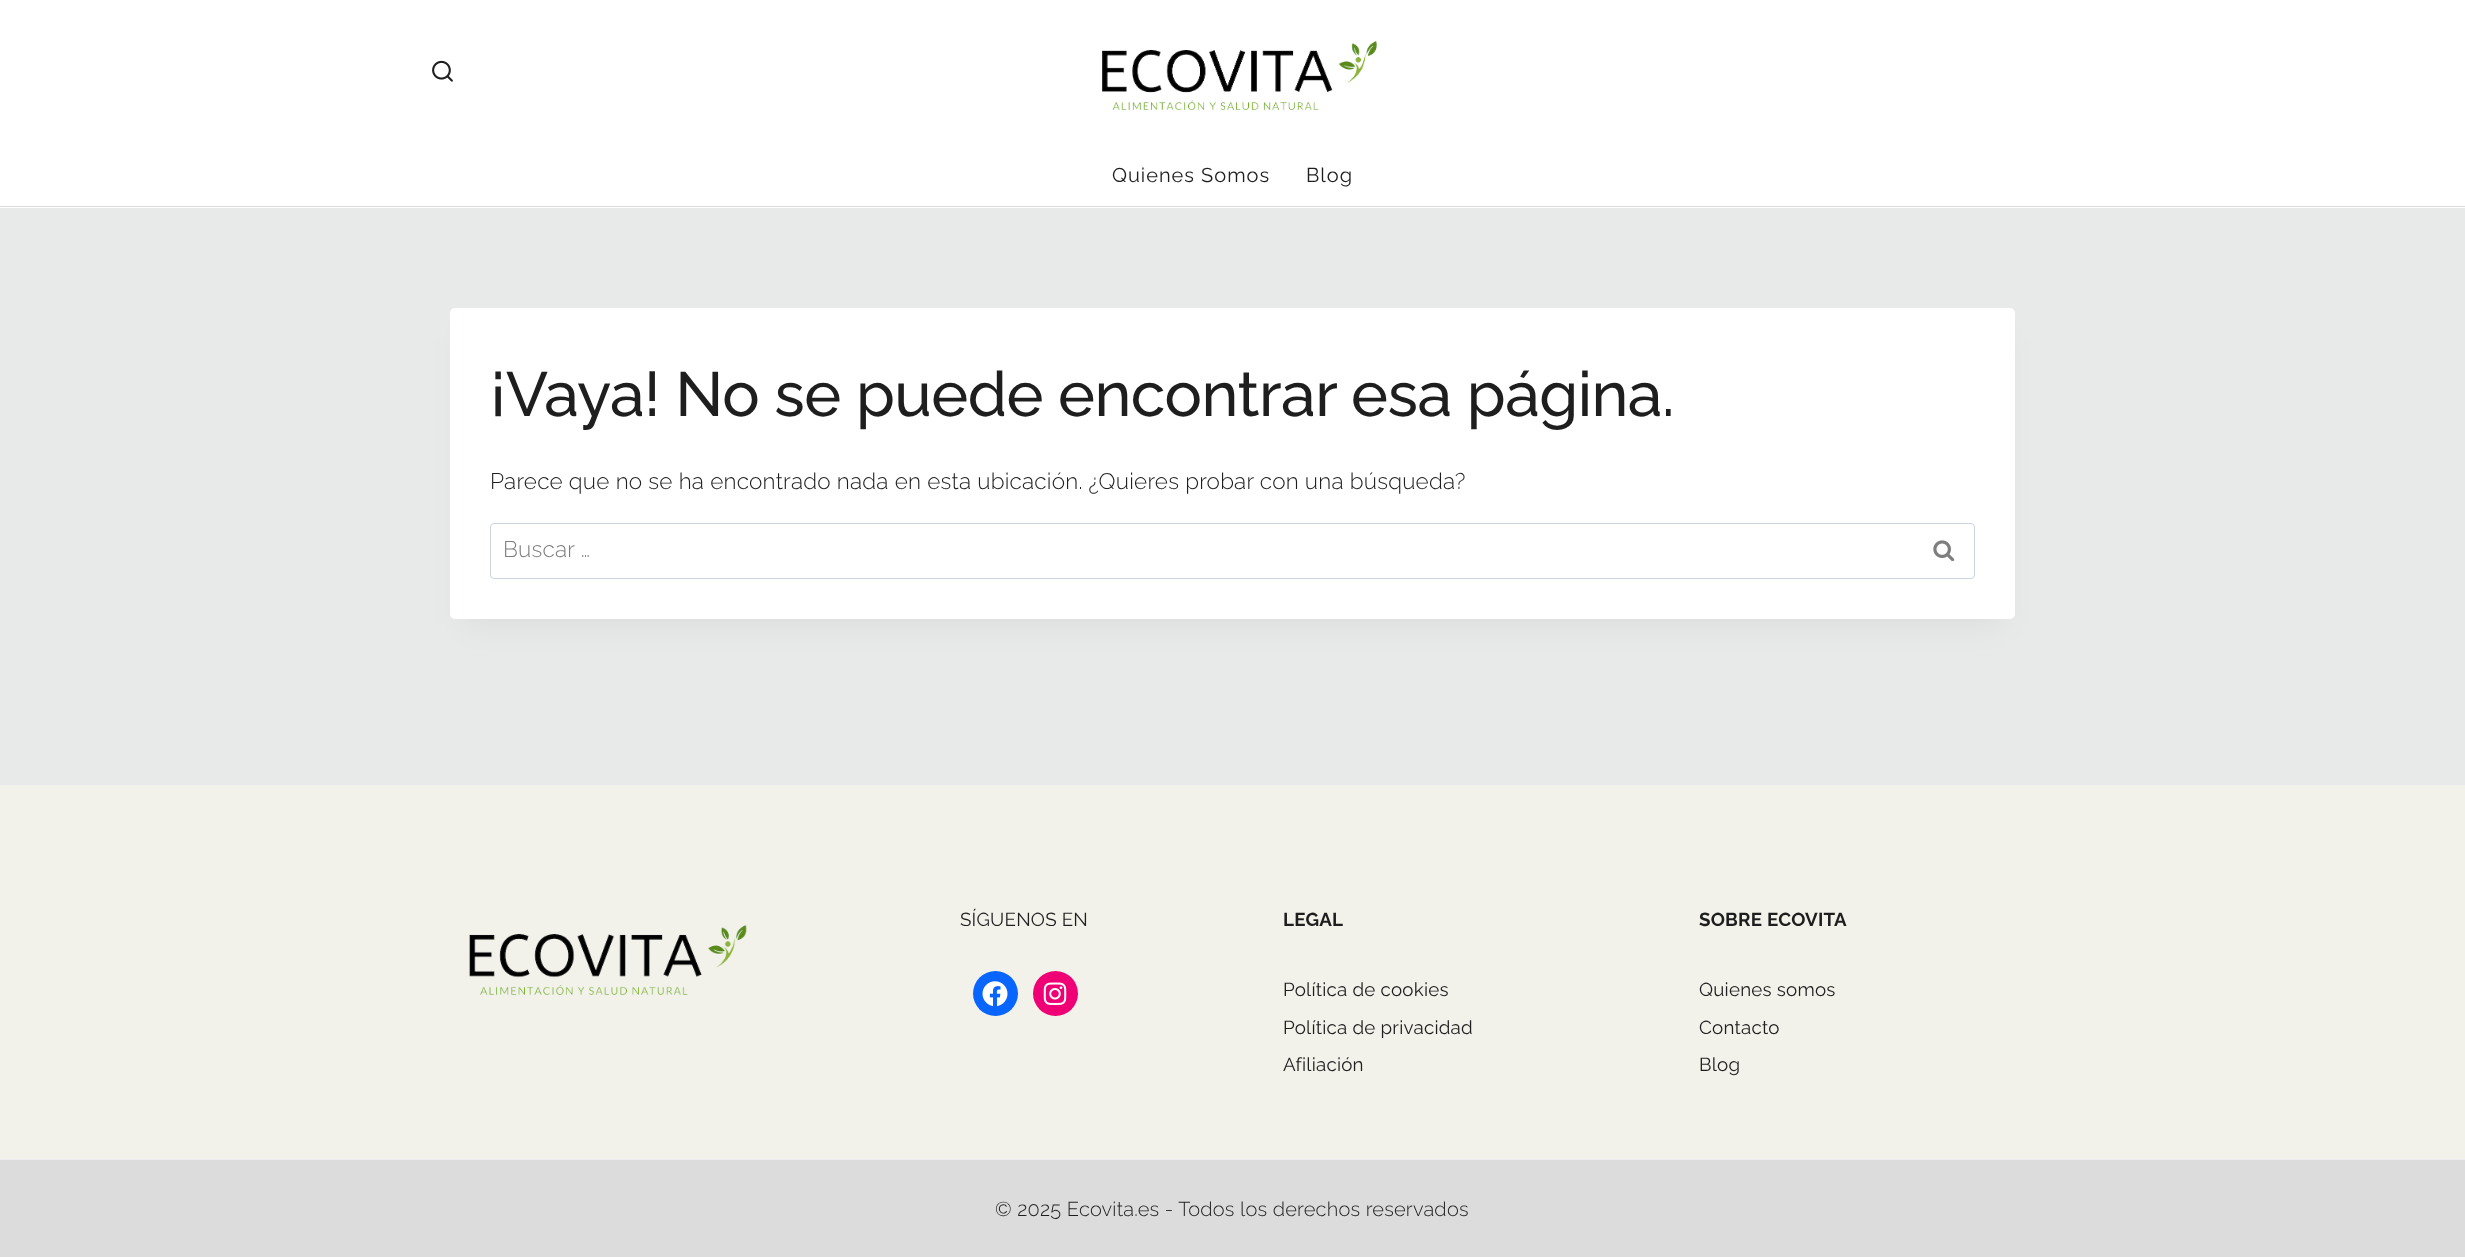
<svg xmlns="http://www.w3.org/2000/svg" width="2465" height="1257">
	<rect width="100%" height="100%" fill="#E7EAE8" />
	<rect x="0" y="0" width="2465" height="208" fill="#FFFFFF" />
	<image x="432" y="60" width="21" height="22" href="assets/img1.png" />
	<image x="1102" y="41" width="275" height="69" href="assets/img2.png" />
	<rect x="0" y="206" width="2465" height="1" fill="#DBDCDB" />
	<g font-family="Raleway" font-size="20" letter-spacing="1" fill="#1E1E1E">
		<text x="1112" y="182">Quienes Somos</text>
		<text x="1306" y="182">Blog</text>
	</g>
	<rect x="463" y="339" width="1540" height="286" fill="#000000" fill-opacity="0.05" filter="blur(15.5px)" />
	<rect x="450" y="308" width="1565" height="311" rx="5" fill="#FFFFFF" />
	<text x="490" y="416" font-family="Raleway" font-size="62.5" font-weight="500" letter-spacing="-0.55" fill="#1E1E1E">¡Vaya! No se puede encontrar esa página.</text>
	<text x="490" y="489" font-family="Raleway" font-size="22.5" font-weight="300" letter-spacing="0.22" fill="#1E1E1E">Parece que no se ha encontrado nada en esta ubicación. ¿Quieres probar con una búsqueda?</text>
	<rect x="490.5" y="523.5" width="1484" height="55" rx="3.5" fill="none" stroke="#CBD5E0" />
	<text x="503" y="557" font-family="Raleway" font-size="22.5" font-weight="300" letter-spacing="0.22" fill="#7E7E7E">Buscar …</text>
	<image x="1933" y="540" width="22" height="21" href="assets/img3.png" />
	<rect x="0" y="785" width="2465" height="374" fill="#F3F2EA" />
	<image x="469" y="925" width="278" height="70" href="assets/img4.png" />
	<text x="960" y="926" font-family="Raleway" font-size="18.75" letter-spacing="0.22" fill="#1E1E1E">SÍGUENOS EN</text>
	<circle cx="995.5" cy="993.5" r="22.5" fill="#0866FF" />
	<image x="982" y="981" width="26" height="26" href="assets/img5.png" />
	<circle cx="1055.5" cy="993.5" r="22.5" fill="#F00075" />
	<image x="1043" y="982" width="24" height="23" href="assets/img6.png" />
	<text x="1283" y="926" font-family="Raleway" font-size="18.75" font-weight="700" letter-spacing="0.22" fill="#1E1E1E">LEGAL</text>
	<g font-family="Raleway" font-size="18.75" letter-spacing="0.22" fill="#1E1E1E">
		<text x="1283" y="996">Política de cookies</text>
		<text x="1283" y="1034">Política de privacidad</text>
		<text x="1283" y="1071">Afiliación</text>
	</g>
	<text x="1699" y="926" font-family="Raleway" font-size="18.75" font-weight="700" letter-spacing="0.22" fill="#1E1E1E">SOBRE ECOVITA</text>
	<g font-family="Raleway" font-size="18.75" letter-spacing="0.22" fill="#1E1E1E">
		<text x="1699" y="996">Quienes somos</text>
		<text x="1699" y="1034">Contacto</text>
		<text x="1699" y="1071">Blog</text>
	</g>
	<rect x="0" y="1160" width="2465" height="97" fill="#DBDCDB" />
	<rect x="0" y="1159" width="2465" height="1" fill="#EEEEEE" />
	<text x="995" y="1216" font-family="Raleway" font-size="20" font-weight="300" letter-spacing="0.22" fill="#1E1E1E">© 2025 Ecovita.es - Todos los derechos reservados</text>
</svg>
